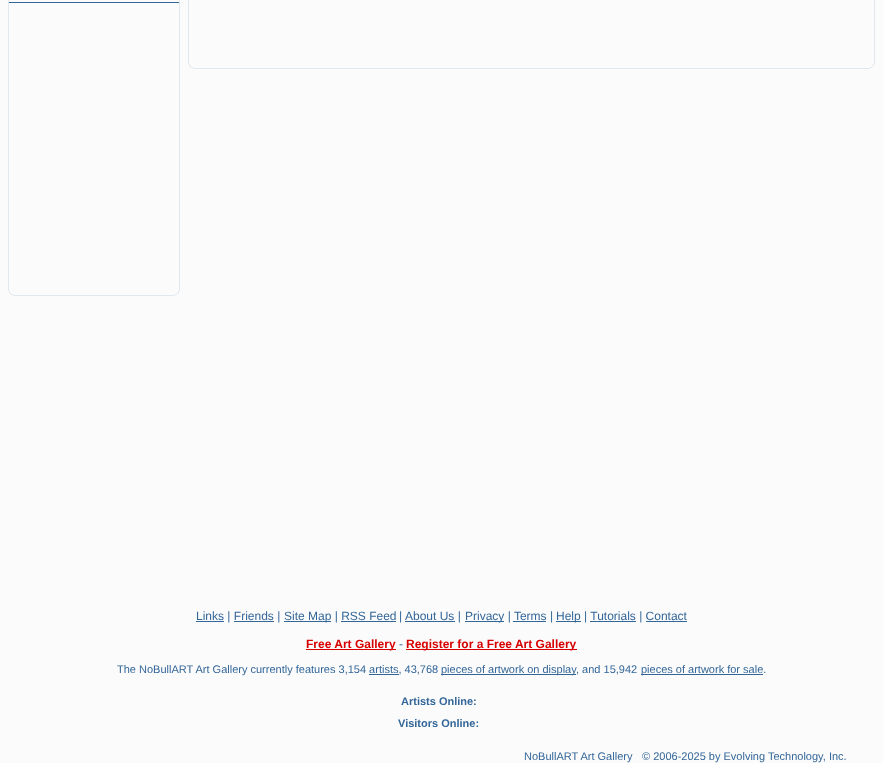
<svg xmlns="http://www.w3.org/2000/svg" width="883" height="763">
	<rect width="100%" height="100%" fill="#FBFBFB" />
	<rect x="179" y="0" width="1" height="291" fill="#E1E8EF" />
	<rect x="8" y="0" width="1" height="291" fill="#E1E8EF" />
	<rect x="9" y="2" width="170" height="1" fill="#336699" />
	<rect x="178" y="291" width="1" height="2" fill="#E1E8EF" />
	<rect x="9" y="291" width="1" height="2" fill="#E1E8EF" />
	<rect x="177" y="293" width="1" height="1" fill="#E1E8EF" />
	<rect x="10" y="293" width="1" height="1" fill="#E1E8EF" />
	<rect x="175" y="294" width="2" height="1" fill="#E1E8EF" />
	<rect x="11" y="294" width="2" height="1" fill="#E1E8EF" />
	<rect x="13" y="295" width="162" height="1" fill="#E1E8EF" />
	<rect x="874" y="0" width="1" height="64" fill="#E1E8EF" />
	<rect x="188" y="0" width="1" height="64" fill="#E1E8EF" />
	<rect x="873" y="64" width="1" height="2" fill="#E1E8EF" />
	<rect x="189" y="64" width="1" height="2" fill="#E1E8EF" />
	<rect x="872" y="66" width="1" height="1" fill="#E1E8EF" />
	<rect x="190" y="66" width="1" height="1" fill="#E1E8EF" />
	<rect x="870" y="67" width="2" height="1" fill="#E1E8EF" />
	<rect x="191" y="67" width="2" height="1" fill="#E1E8EF" />
	<rect x="193" y="68" width="677" height="1" fill="#E1E8EF" />
	<rect x="196" y="621" width="28" height="1" fill="#336699" />
	<text x="196" y="620" font-family="Liberation Sans" font-size="12" fill="#336699">Links | Friends |</text>
	<rect x="284" y="621" width="47" height="1" fill="#336699" />
	<g font-family="Liberation Sans" font-size="12" fill="#336699">
		<text x="284" y="620">Site Map | RSS Feed</text>
		<text x="399" y="620">|</text>
	</g>
	<rect x="405" y="621" width="50" height="1" fill="#336699" />
	<text x="405" y="620" font-family="Liberation Sans" font-size="12" fill="#336699">About Us |</text>
	<rect x="465" y="621" width="39" height="1" fill="#336699" />
	<text x="465" y="620" font-family="Liberation Sans" font-size="12" fill="#336699">Privacy | Terms |</text>
	<rect x="556" y="621" width="25" height="1" fill="#336699" />
	<text x="556" y="620" font-family="Liberation Sans" font-size="12" fill="#336699">Help | Tutorials | Contact</text>
	<rect x="234" y="621" width="40" height="1" fill="#336699" />
	<rect x="341" y="621" width="55" height="1" fill="#336699" />
	<rect x="513" y="621" width="33" height="1" fill="#336699" />
	<rect x="590" y="621" width="46" height="1" fill="#336699" />
	<rect x="646" y="621" width="41" height="1" fill="#336699" />
	<rect x="306" y="649" width="90" height="1" fill="#D70000" />
	<text x="306" y="648" font-family="Liberation Sans" font-size="12" font-weight="700" fill="#D70000">Free Art Gallery</text>
	<text x="399" y="648" font-family="Liberation Sans" font-size="12" fill="#336699">-</text>
	<rect x="406" y="649" width="171" height="1" fill="#D70000" />
	<text x="406" y="648" font-family="Liberation Sans" font-size="12" font-weight="700" fill="#D70000">Register for a Free Art Gallery</text>
	<text x="117" y="673" font-family="Liberation Sans" font-size="11" fill="#336699">The NoBullART Art Gallery currently features 3,154 artists, 43,768</text>
	<rect x="441" y="674" width="135" height="1" fill="#336699" />
	<g font-family="Liberation Sans" font-size="11" fill="#336699">
		<text x="441" y="673">pieces of artwork on display</text>
		<text x="576" y="673">, and 15,942</text>
	</g>
	<rect x="641" y="674" width="122" height="1" fill="#336699" />
	<text x="641" y="673" font-family="Liberation Sans" font-size="11" fill="#336699">pieces of artwork for sale.</text>
	<rect x="369" y="674" width="30" height="1" fill="#336699" />
	<g font-family="Liberation Sans" font-size="11" font-weight="700" fill="#336699">
		<text x="401" y="705">Artists Online:</text>
		<text x="398" y="727">Visitors Online:</text>
	</g>
	<g font-family="Liberation Sans" font-size="11" fill="#336699">
		<text x="524" y="760">NoBullART Art Gallery</text>
		<text x="642" y="760">© 2006-2025 by Evolving Technology, Inc.</text>
	</g>
</svg>
